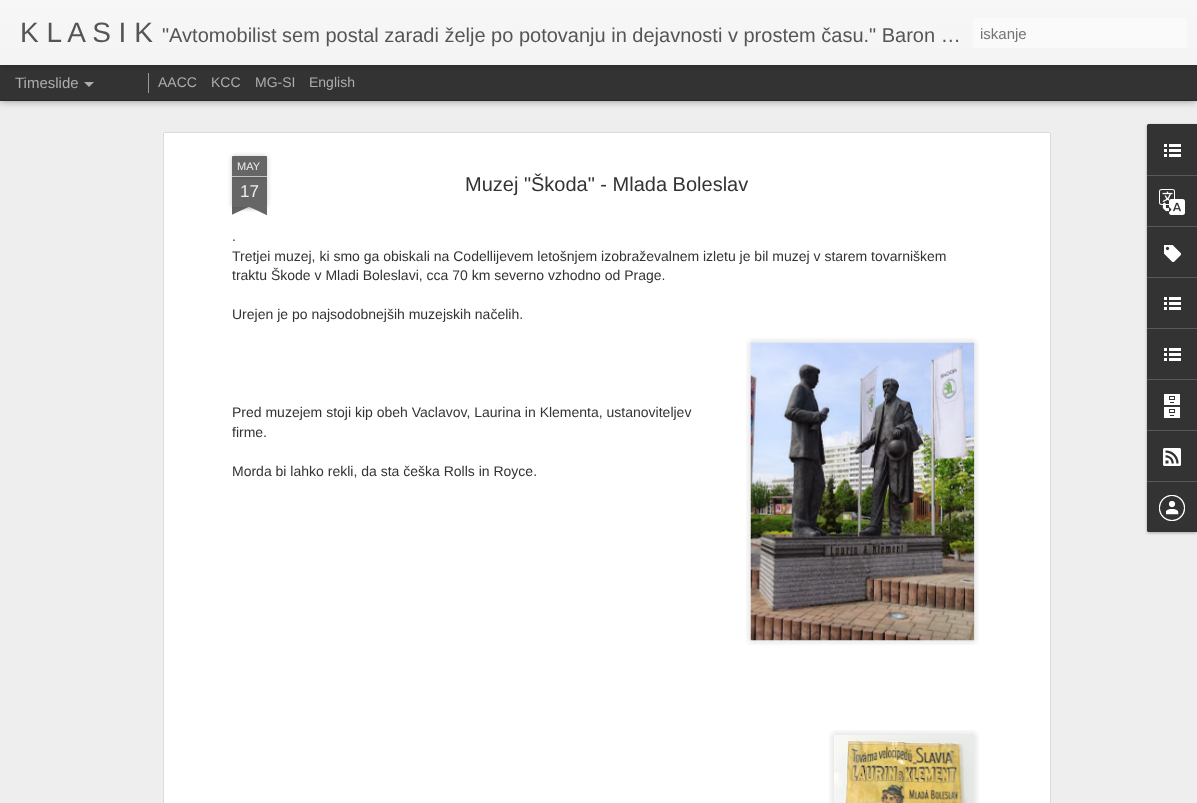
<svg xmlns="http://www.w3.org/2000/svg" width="1197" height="803">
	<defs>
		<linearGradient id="g1" gradientUnits="userSpaceOnUse" x1="0" y1="0" x2="0" y2="65"><stop offset="0" stop-color="#F7F7F7" /><stop offset="1" stop-color="#F4F4F4" /></linearGradient>
		<clipPath id="clip1"><rect x="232" y="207" width="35" height="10" /></clipPath>
		<clipPath id="clip2"><rect x="232" y="207" width="35" height="10" /></clipPath>
	</defs>
	<rect width="100%" height="100%" fill="#333333" />
	<rect x="0" y="101" width="1197" height="702" fill="#EEEEEE" />
	<rect x="0" y="65" width="1197" height="35" fill="#000000" fill-opacity="0.5" filter="blur(4px)" />
	<rect x="0" y="65" width="1197" height="35" fill="#333333" />
	<rect x="148" y="73" width="1" height="20" fill="#999999" />
	<rect x="0" y="0" width="1197" height="65" fill="#000000" fill-opacity="0.3" filter="blur(2.5px)" />
	<rect x="0" y="0" width="1197" height="65" fill="url(#g1)" />
	<text x="20" y="42" font-family="Liberation Sans" font-size="28" fill="#555555">K L A S I K</text>
	<text x="162" y="42" font-family="Liberation Sans" font-size="20" fill="#555555">"Avtomobilist sem postal zaradi želje po potovanju in dejavnosti v prostem času." Baron …</text>
	<rect x="973" y="18" width="214" height="30" rx="3" fill="#FAFAFA" />
	<text x="980" y="39" font-family="Liberation Sans" font-size="15" fill="#757575">iskanje</text>
	<text x="15" y="88" font-family="Liberation Sans" font-size="15" fill="#ADADAD">Timeslide</text>
	<path d="M84 82H94L89 87Z" fill="#ADADAD" />
	<g font-family="Liberation Sans" font-size="14" fill="#ADADAD">
		<text x="158" y="87">AACC</text>
		<text x="211" y="87">KCC</text>
		<text x="255" y="87">MG-SI</text>
		<text x="309" y="87">English</text>
	</g>
	<rect x="162" y="131" width="890" height="672" fill="#FFFFFF" />
	<image x="162" y="131" width="890" height="672" href="assets/img1.png" />
	<rect x="232" y="177" width="35" height="30" fill="#000000" fill-opacity="0.2" filter="blur(2.5px)" />
	<rect x="232" y="177" width="35" height="30" fill="#666666" />
	<rect x="232" y="156" width="35" height="21" rx="1" fill="#000000" fill-opacity="0.2" filter="blur(2.5px)" />
	<path d="M233 156H266C266.5 156 267 156.5 267 157V177H232V157C232 156.5 232.5 156 233 156Z" fill="#666666" />
	<rect x="232" y="176" width="35" height="1" fill="#C2C2C2" />
	<text x="237" y="170" font-family="Liberation Sans" font-size="11" fill="#EEEEEE">MAY</text>
	<text x="240" y="197" font-family="Liberation Sans" font-size="17" fill="#EEEEEE">17</text>
	<g clip-path="url(#clip1)">
		<rect x="223" y="197" width="50" height="10" fill="#000000" fill-opacity="0.2" filter="blur(2.5px)" />
	</g>
	<g clip-path="url(#clip2)">
		<path d="M223 208L268 187L272 196L227 217Z" fill="#666666" />
	</g>
	<g clip-path="url(#clip1)">
		<rect x="226" y="197" width="50" height="10" fill="#000000" fill-opacity="0.2" filter="blur(2.5px)" />
	</g>
	<g clip-path="url(#clip2)">
		<path d="M230 187L275 208L271 217L226 196Z" fill="#666666" />
	</g>
	<text x="465" y="191" font-family="Liberation Sans" font-size="20" fill="#333333">Muzej "Škoda" - Mlada Boleslav</text>
	<g font-family="Liberation Sans" font-size="14" fill="#333333">
		<text x="232" y="241">.</text>
		<text x="232" y="261">Tretjei muzej, ki smo ga obiskali na Codellijevem letošnjem izobraževalnem izletu je bil muzej v starem tovarniškem</text>
		<text x="232" y="280">traktu Škode v Mladi Boleslavi, cca 70 km severno vzhodno od Prage.</text>
		<text x="232" y="319">Urejen je po najsodobnejših muzejskih načelih.</text>
		<text x="232" y="417">Pred muzejem stoji kip obeh Vaclavov, Laurina in Klementa, ustanoviteljev</text>
	</g>
	<image x="746" y="338" width="233" height="307" href="assets/img2.png" />
	<image x="750" y="342" width="225" height="299" href="assets/img3.png" />
	<g font-family="Liberation Sans" font-size="14" fill="#333333">
		<text x="232" y="437">firme.</text>
		<text x="232" y="476">Morda bi lahko rekli, da sta češka Rolls in Royce.</text>
	</g>
	<image x="829" y="730" width="150" height="73" href="assets/img4.png" />
	<image x="850" y="742" width="113" height="61" href="assets/img5.png" />
	<rect x="1147" y="125" width="50" height="408" rx="2" fill="#000000" fill-opacity="0.3" filter="blur(1.5px)" />
	<path d="M1149 124H1197V532H1149C1148 532 1147 531 1147 530V126C1147 125 1148 124 1149 124Z" fill="#333333" />
	<path d="M1149 124H1197V175H1147V126C1147 125 1148 124 1149 124Z" fill="#333333" />
	<image x="1164" y="144" width="17" height="13" href="assets/img6.png" />
	<rect x="1147" y="175" width="50" height="1" fill="#585858" />
	<image x="1159" y="189" width="26" height="26" href="assets/img7.png" />
	<rect x="1147" y="226" width="50" height="1" fill="#585858" />
	<image x="1164" y="245" width="17" height="17" href="assets/img8.png" />
	<rect x="1147" y="277" width="50" height="1" fill="#585858" />
	<image x="1164" y="297" width="17" height="13" href="assets/img6.png" />
	<rect x="1147" y="328" width="50" height="1" fill="#585858" />
	<image x="1164" y="348" width="17" height="13" href="assets/img6.png" />
	<rect x="1147" y="379" width="50" height="1" fill="#585858" />
	<image x="1164" y="394" width="16" height="24" href="assets/img9.png" />
	<rect x="1147" y="430" width="50" height="1" fill="#585858" />
	<image x="1163" y="448" width="18" height="18" href="assets/img10.png" />
	<path d="M1147 481H1197V532H1149C1148 532 1147 531 1147 530Z" fill="#333333" />
	<rect x="1147" y="481" width="50" height="1" fill="#585858" />
	<image x="1159" y="495" width="26" height="26" href="assets/img11.png" />
</svg>
